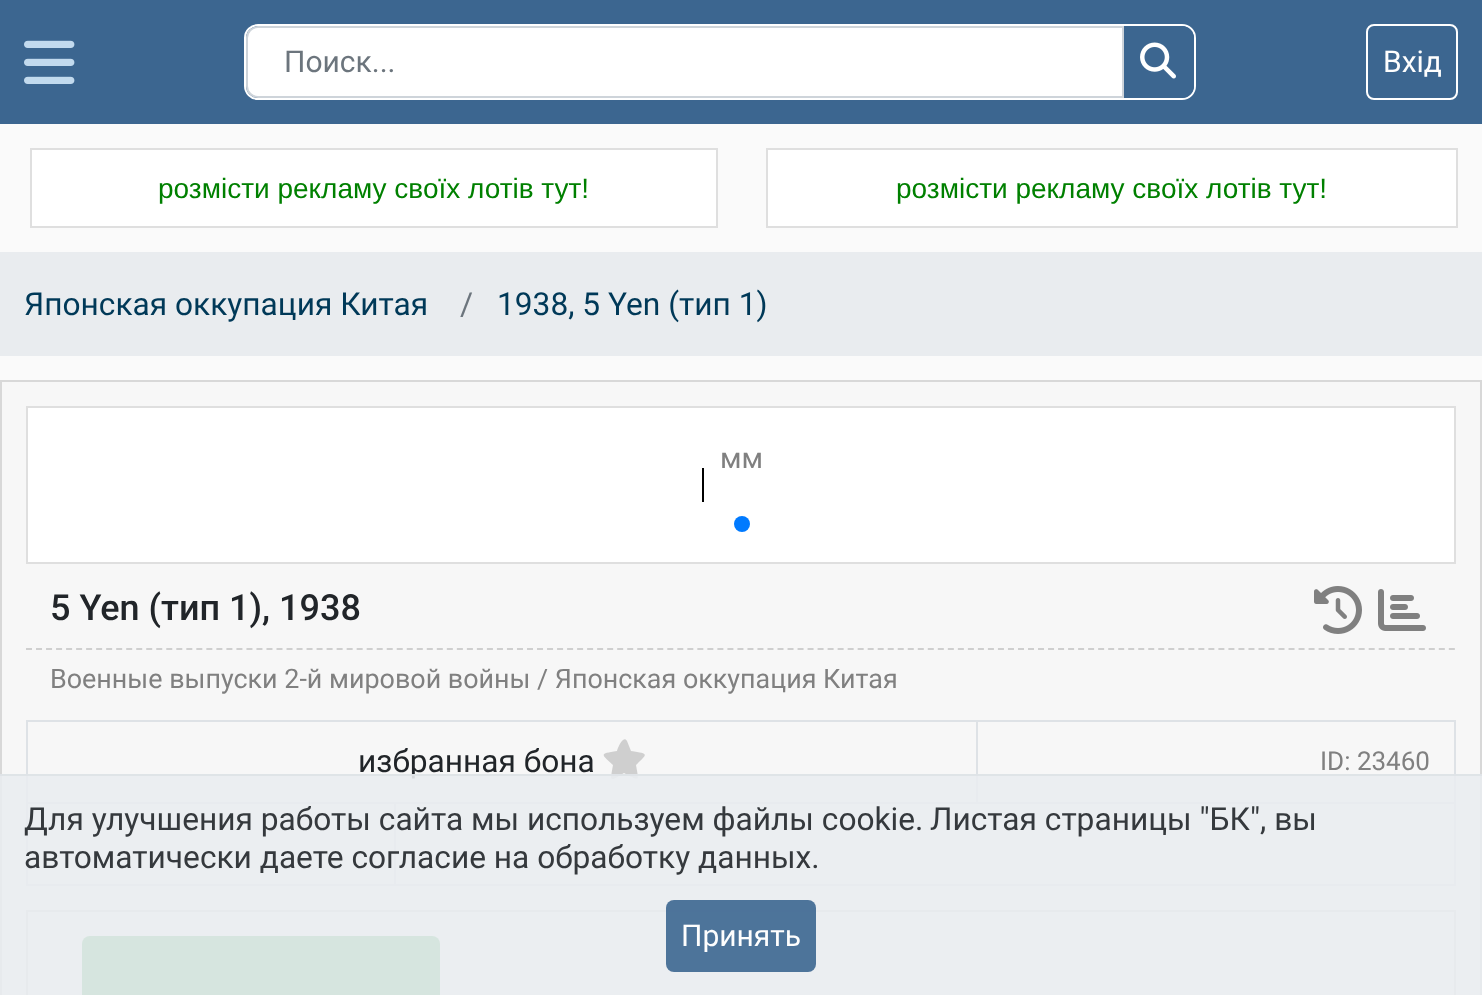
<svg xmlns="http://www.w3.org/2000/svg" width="1482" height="995">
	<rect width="100%" height="100%" fill="#FAFAFA" />
	<rect x="0" y="0" width="1482" height="124" fill="#3C6690" />
	<image x="24" y="40" width="51" height="44" href="assets/img1.png" />
	<rect x="245" y="25" width="950" height="74" rx="13" fill="none" stroke="#FFFFFF" stroke-width="2" />
	<path d="M1122 26H1182C1188.5 26 1194 31.5 1194 38V86C1194 92.5 1188.5 98 1182 98H1122Z" fill="#3C6690" />
	<path d="M258 27H1123V97H258C252 97 247 92 247 86V38C247 32 252 27 258 27Z" fill="#FFFFFF" stroke="#CED4DA" stroke-width="2" />
	<text x="284" y="72" font-family="Roboto" font-size="30" fill="#6C757D">Поиск...</text>
	<image x="1140" y="42" width="36" height="37" href="assets/img2.png" />
	<rect x="1367" y="25" width="90" height="74" rx="7" fill="none" stroke="#FFFFFF" stroke-width="2" />
	<text x="1383" y="72" font-family="Roboto" font-size="30" fill="#FEFEFE">Вхід</text>
	<rect x="31" y="149" width="686" height="78" fill="#FFFFFF" stroke="#DFDFDF" stroke-width="2" />
	<text x="158" y="198" font-family="Liberation Sans" font-size="28" fill="#008000">розмісти рекламу своїх лотів тут!</text>
	<rect x="767" y="149" width="690" height="78" fill="#FFFFFF" stroke="#DFDFDF" stroke-width="2" />
	<text x="896" y="198" font-family="Liberation Sans" font-size="28" fill="#008000">розмісти рекламу своїх лотів тут!</text>
	<rect x="0" y="252" width="1482" height="104" fill="#E9ECEF" />
	<text x="24" y="315" font-family="Roboto" font-size="31.7" fill="#003958">Японская оккупация Китая</text>
	<text x="460" y="315" font-family="Roboto" font-size="31.7" fill="#6C757D">/</text>
	<text x="497" y="315" font-family="Roboto" font-size="31.7" fill="#003958">1938, 5 Yen (тип 1)</text>
	<rect x="1" y="381" width="1480" height="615" fill="#F7F7F7" stroke="#D8D8D8" stroke-width="2" />
	<rect x="27" y="407" width="1428" height="156" fill="#FFFFFF" stroke="#DFDFDF" stroke-width="2" />
	<text x="720" y="468" font-family="Roboto" font-size="29" fill="#808080">мм</text>
	<rect x="702" y="468" width="2" height="34" fill="#000000" />
	<circle cx="742" cy="524" r="8" fill="#007AFF" />
	<path d="M26 649H1456" fill="none" stroke="#CFCFCF" stroke-width="2" stroke-dasharray="6 4.02" />
	<text x="50" y="620" font-family="Roboto" font-size="36" font-weight="500" fill="#212529">5 Yen (тип 1), 1938</text>
	<image x="1314" y="586" width="48" height="48" href="assets/img3.png" />
	<image x="1378" y="589" width="48" height="42" href="assets/img4.png" />
	<g font-family="Roboto" font-size="26.9" fill="#808080">
		<text x="50" y="688">Военные выпуски 2-й мировой войны</text>
		<text x="537" y="688">/ Японская оккупация Китая</text>
	</g>
	<rect x="27" y="721" width="1428" height="164" fill="none" stroke="#DEE2E6" stroke-width="2" />
	<rect x="28" y="802" width="1426" height="2" fill="#DEE2E6" />
	<rect x="976" y="722" width="2" height="80" fill="#DEE2E6" />
	<text x="358" y="772" font-family="Roboto" font-size="31.7" fill="#212529">избранная бона</text>
	<path d="M627 741C623 734 617 750 617 751C600 754 600 753 613 765C610 782 609 782 624 773C640 781 639 782 636 765C648 753 649 754 631 751Z" fill="#CFCFCF" />
	<text x="1320" y="770" font-family="Roboto" font-size="26" fill="#808080">ID: 23460</text>
	<rect x="394" y="804" width="2" height="80" fill="#DEE2E6" />
	<rect x="27" y="911" width="1428" height="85" fill="none" stroke="#D8D8D8" stroke-width="2" />
	<rect x="82" y="936" width="358" height="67" rx="8" fill="#28A745" />
	<rect x="0" y="774" width="1482" height="221" fill="#E9ECEF" fill-opacity="0.9" />
	<rect x="0" y="774" width="1482" height="2" fill="#DEE2E6" fill-opacity="0.9" />
	<g font-family="Roboto" font-size="31.7" fill="#35393D">
		<text x="24" y="830">Для улучшения работы сайта мы используем файлы cookie.</text>
		<text x="930" y="830">Листая страницы "БК", вы</text>
		<text x="24" y="868">автоматически даете согласие на обработку данных.</text>
	</g>
	<rect x="666" y="900" width="150" height="72" rx="8" fill="#3C6690" fill-opacity="0.9" />
	<text x="681" y="946" font-family="Roboto" font-size="30" fill="#FEFEFE">Принять</text>
</svg>
